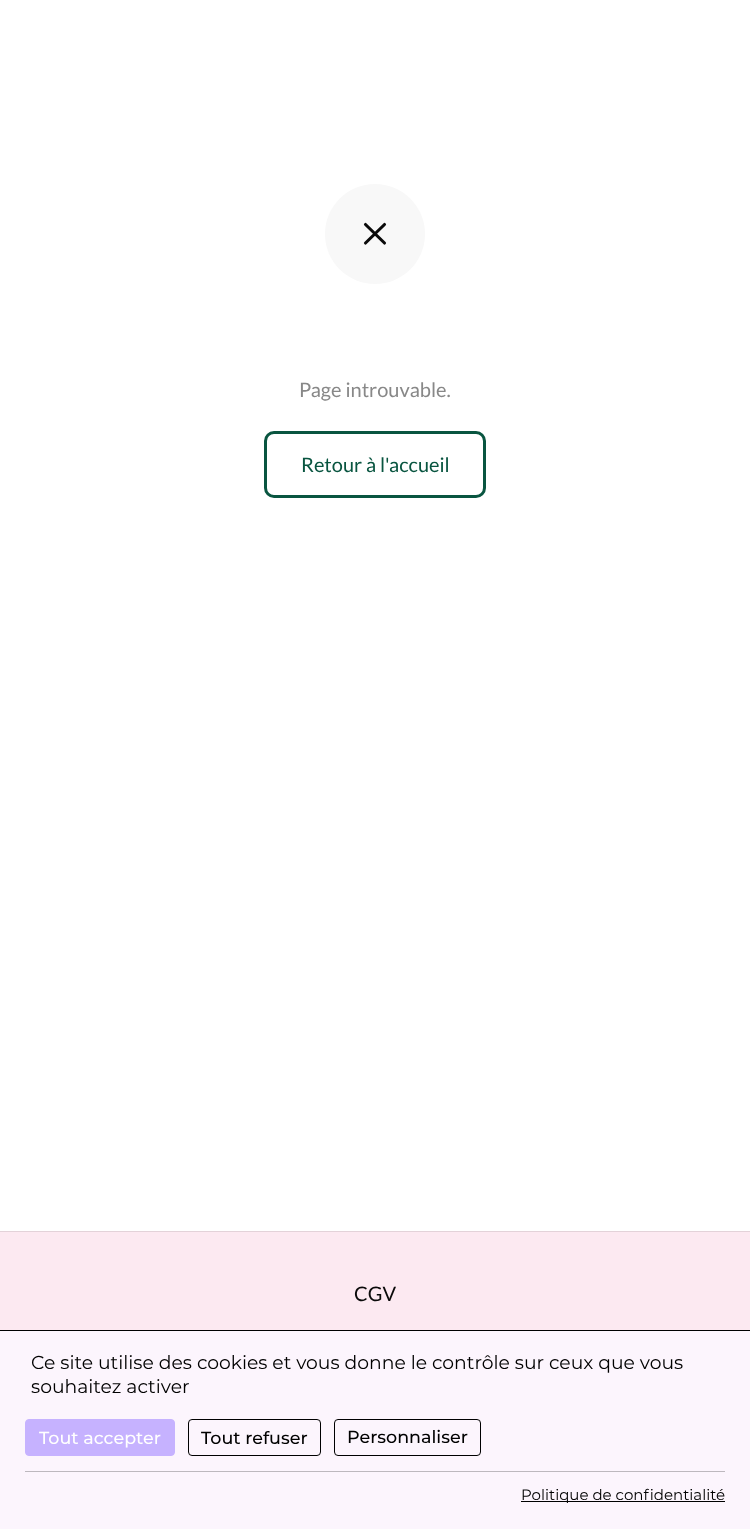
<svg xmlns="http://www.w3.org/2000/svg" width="750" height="1529">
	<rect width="100%" height="100%" fill="#FFFFFF" />
	<circle cx="375" cy="234" r="50" fill="#F8F8F8" />
	<path d="M384.5 224.5L365.5 243M365.5 224.5L384.5 243" fill="none" stroke="#0A0A0A" stroke-width="3.1" stroke-linecap="round" stroke-linejoin="round" />
	<text x="299" y="397" font-family="Lato" font-size="20" fill="#888888">Page introuvable.</text>
	<rect x="265.5" y="432.5" width="219" height="64" rx="8.5" fill="none" stroke="#095540" stroke-width="3" />
	<text x="301" y="472" font-family="Lato" font-size="20" fill="#095540">Retour à l'accueil</text>
	<rect x="0" y="1232" width="750" height="98" fill="#FCE9F1" />
	<rect x="0" y="1231" width="750" height="1" fill="#E3D2D9" />
	<text x="354" y="1301" font-family="Lato" font-size="20" fill="#0A0A0A">CGV</text>
	<rect x="0" y="1331" width="750" height="198" fill="#FCF5FD" />
	<rect x="0" y="1330" width="750" height="1" fill="#000000" />
	<g font-family="Montserrat" font-size="18.75" fill="#000000">
		<text x="31" y="1369">Ce site utilise des cookies et vous donne le contrôle sur ceux que vous</text>
		<text x="31" y="1393">souhaitez activer</text>
	</g>
	<rect x="25.5" y="1419.5" width="149" height="36" rx="3.5" fill="#C6B2FF" stroke="#C6B2FF" />
	<text x="39" y="1444" font-family="Montserrat" font-size="17.5" font-weight="500" fill="#FFFFFF">Tout accepter</text>
	<rect x="188.5" y="1419.5" width="132" height="36" rx="3.5" fill="none" stroke="#000000" />
	<text x="201" y="1444" font-family="Montserrat" font-size="17.5" font-weight="500" fill="#000000">Tout refuser</text>
	<rect x="334.5" y="1419.5" width="146" height="36" rx="3.5" fill="none" stroke="#000000" />
	<text x="347" y="1443" font-family="Montserrat" font-size="17.5" font-weight="500" fill="#000000">Personnaliser</text>
	<rect x="25" y="1471" width="700" height="1" fill="#BDB8BE" />
	<rect x="521" y="1501" width="204" height="1" fill="#000000" />
	<text x="521" y="1500" font-family="Montserrat" font-size="15" fill="#000000">Politique de confidentialité</text>
</svg>
